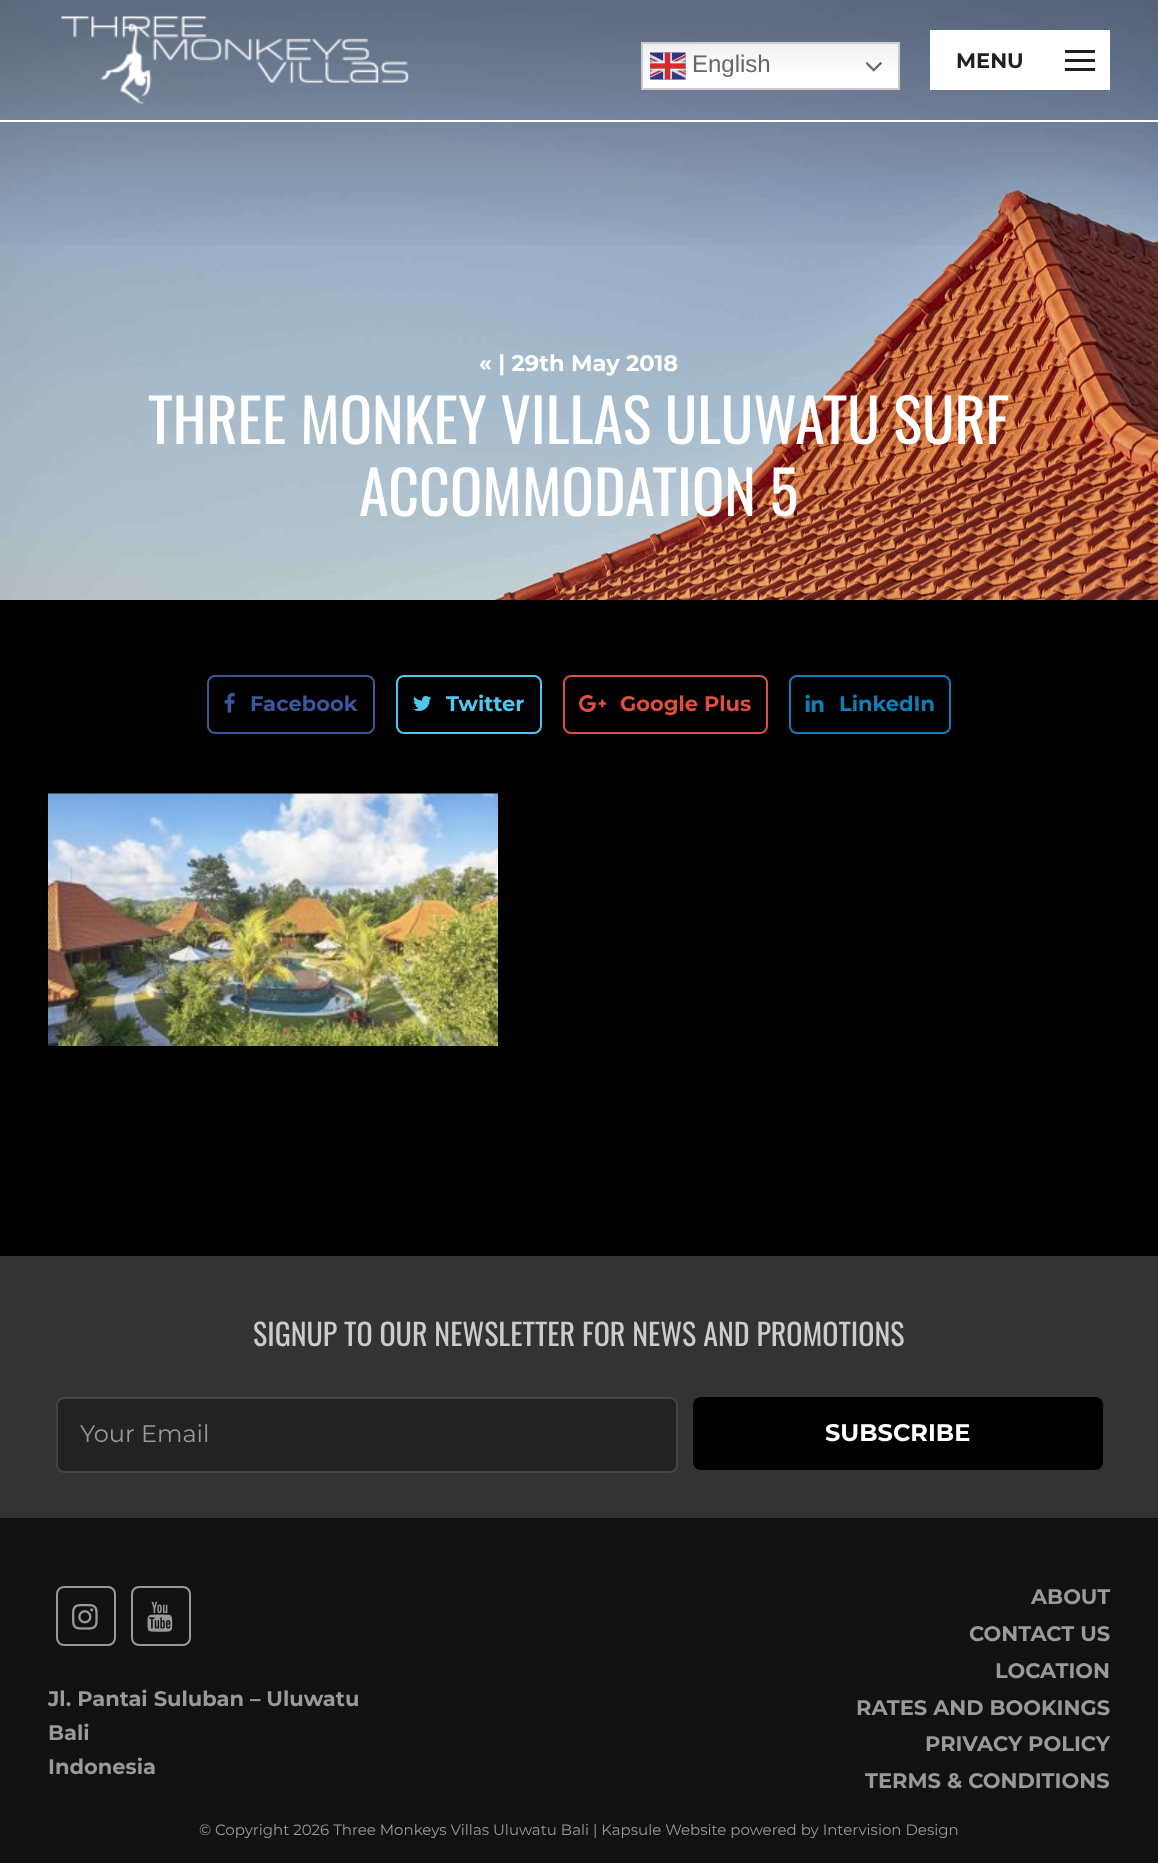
<svg xmlns="http://www.w3.org/2000/svg" width="1158" height="1863">
	<defs>
		<linearGradient id="g1" gradientUnits="userSpaceOnUse" x1="770" y1="42" x2="770" y2="90"><stop offset="0" stop-color="#EFEFEF" /><stop offset="0.7" stop-color="#FFFFFF" /></linearGradient>
	</defs>
	<rect width="100%" height="100%" fill="#111111" />
	<image x="0" y="0" width="1158" height="600" href="assets/img5.png" />
	<image x="0" y="0" width="1158" height="245" href="assets/img4.png" />
	<image x="61" y="16" width="348" height="88" href="assets/img1.png" />
	<rect x="643" y="44" width="255" height="44" fill="url(#g1)" />
	<rect x="642" y="43" width="257" height="46" fill="none" stroke="#CCCCCC" stroke-width="2" />
	<image x="650" y="52" width="36" height="28" href="assets/img2.png" />
	<text x="692" y="72" font-family="Liberation Sans" font-size="24" fill="#666666">English</text>
	<image x="866" y="62" width="16" height="10" href="assets/img3.png" />
	<rect x="930" y="30" width="180" height="60" fill="#FFFFFF" />
	<text x="956" y="68" font-family="Montserrat" font-size="21" font-weight="700" fill="#1F2122">MENU</text>
	<rect x="1065" y="50" width="30" height="3" fill="#1F2122" />
	<rect x="1065" y="59" width="30" height="3" fill="#1F2122" />
	<rect x="1065" y="68" width="30" height="3" fill="#1F2122" />
	<rect x="0" y="120" width="1158" height="2" fill="#FFFFFF" />
	<text x="479" y="371" font-family="Montserrat" font-size="22.5" font-weight="700" fill="#FFFFFF">« | 29th May 2018</text>
	<g font-family="Oswald" font-size="60" fill="#FFFFFF">
		<text x="148" y="444">THREE MONKEY VILLAS ULUWATU SURF</text>
		<text x="359" y="516">ACCOMMODATION 5</text>
	</g>
	<rect x="0" y="600" width="1158" height="656" fill="#000000" />
	<rect x="208" y="676" width="166" height="57" rx="7" fill="none" stroke="#3A589B" stroke-width="2" />
	<image x="224" y="693" width="11" height="20" href="assets/img6.png" />
	<text x="250" y="711" font-family="Montserrat" font-size="21" font-weight="700" fill="#3A589B">Facebook</text>
	<rect x="397" y="676" width="144" height="57" rx="7" fill="none" stroke="#51C7EF" stroke-width="2" />
	<image x="413" y="696" width="19" height="15" href="assets/img7.png" />
	<text x="446" y="711" font-family="Montserrat" font-size="21" font-weight="700" fill="#51C7EF">Twitter</text>
	<rect x="564" y="676" width="203" height="57" rx="7" fill="none" stroke="#DE4E43" stroke-width="2" />
	<image x="579" y="694" width="27" height="19" href="assets/img8.png" />
	<text x="620" y="711" font-family="Montserrat" font-size="21" font-weight="700" fill="#DE4E43">Google Plus</text>
	<rect x="790" y="676" width="160" height="57" rx="7" fill="none" stroke="#137BB6" stroke-width="2" />
	<image x="805" y="694" width="19" height="18" href="assets/img9.png" />
	<text x="839" y="711" font-family="Montserrat" font-size="21" font-weight="700" fill="#137BB6">LinkedIn</text>
	<image x="48" y="793" width="450" height="253" href="assets/img10.png" />
	<rect x="0" y="1256" width="1158" height="262" fill="#333333" />
	<text x="253" y="1346" font-family="Oswald" font-size="30" fill="#CCCCCC">SIGNUP TO OUR NEWSLETTER FOR NEWS AND PROMOTIONS</text>
	<rect x="57" y="1398" width="620" height="74" rx="7" fill="#222222" stroke="#444444" stroke-width="2" />
	<text x="80" y="1442" font-family="Montserrat" font-size="24" fill="#999999">Your Email</text>
	<rect x="693" y="1397" width="410" height="73" rx="8" fill="#000000" />
	<text x="825" y="1441" font-family="Montserrat" font-size="24" font-weight="700" fill="#FFFFFF">SUBSCRIBE</text>
	<rect x="57" y="1587" width="58" height="58" rx="7" fill="none" stroke="#999999" stroke-width="2" />
	<image x="72" y="1603" width="26" height="27" href="assets/img11.png" />
	<rect x="132" y="1587" width="58" height="58" rx="7" fill="none" stroke="#999999" stroke-width="2" />
	<image x="147" y="1601" width="26" height="31" href="assets/img12.png" />
	<g font-family="Montserrat" font-size="21" font-weight="700" fill="#999999">
		<text x="48" y="1706">Jl. Pantai Suluban – Uluwatu</text>
		<text x="48" y="1740">Bali</text>
		<text x="48" y="1774">Indonesia</text>
		<text x="1031" y="1604">ABOUT</text>
		<text x="969" y="1641">CONTACT US</text>
		<text x="995" y="1678">LOCATION</text>
		<text x="856" y="1715">RATES AND BOOKINGS</text>
		<text x="925" y="1751">PRIVACY POLICY</text>
		<text x="865" y="1788">TERMS &amp; CONDITIONS</text>
	</g>
	<text x="199" y="1835" font-family="Montserrat" font-size="15" fill="#999999">© Copyright 2026 Three Monkeys Villas Uluwatu Bali | Kapsule Website powered by Intervision Design</text>
</svg>
